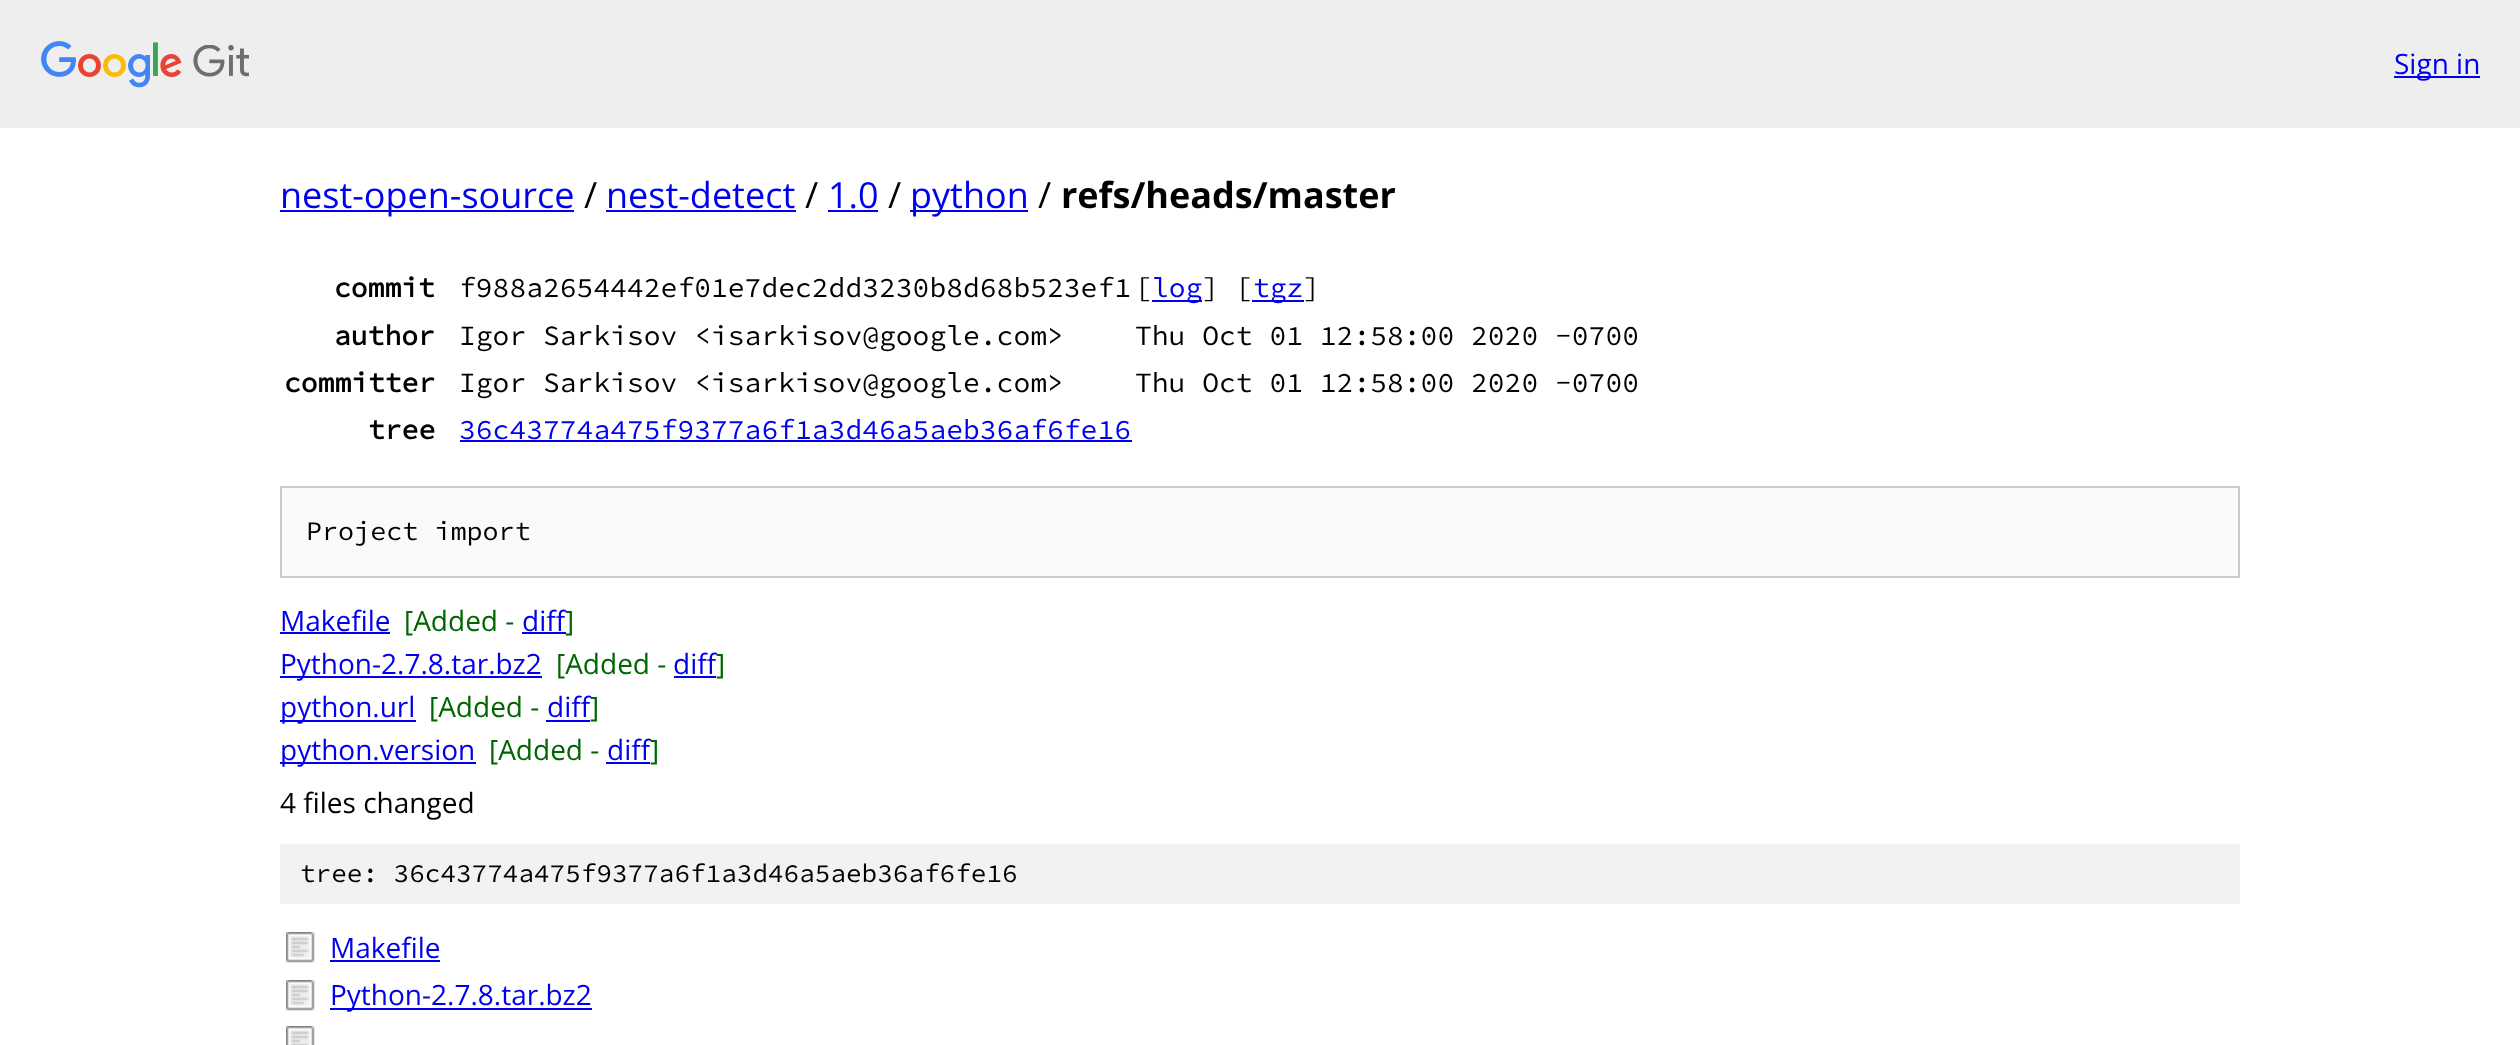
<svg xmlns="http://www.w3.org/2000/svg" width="2520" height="1045">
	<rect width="100%" height="100%" fill="#FFFFFF" />
	<rect x="0" y="0" width="2520" height="128" fill="#EEEEEE" />
	<image x="41" y="41" width="208" height="47" href="assets/img1.png" />
	<rect x="2394" y="76" width="86" height="2" fill="#0000EE" />
	<text x="2394" y="74" font-family="Open Sans" font-size="28" fill="#0000EE">Sign in</text>
	<rect x="280" y="210" width="294" height="2" fill="#0000EE" />
	<text x="280" y="208" font-family="Open Sans" font-size="36" fill="#0000EE">nest-open-source</text>
	<text x="584" y="208" font-family="Open Sans" font-size="36" fill="#000000">/</text>
	<text x="606" y="208" font-family="Open Sans" font-size="36" fill="#0000EE">nest-detect</text>
	<rect x="606" y="210" width="190" height="2" fill="#0000EE" />
	<text x="805" y="208" font-family="Open Sans" font-size="36" fill="#000000">/</text>
	<text x="828" y="208" font-family="Open Sans" font-size="36" fill="#0000EE">1.0</text>
	<rect x="828" y="210" width="50" height="2" fill="#0000EE" />
	<text x="888" y="208" font-family="Open Sans" font-size="36" fill="#000000">/</text>
	<rect x="910" y="210" width="118" height="2" fill="#0000EE" />
	<text x="910" y="208" font-family="Open Sans" font-size="36" fill="#0000EE">python</text>
	<text x="1038" y="208" font-family="Open Sans" font-size="36" fill="#000000">/</text>
	<text x="1061" y="208" font-family="Open Sans" font-size="36" font-weight="700" fill="#000000">refs/heads/master</text>
	<text x="334" y="297" font-family="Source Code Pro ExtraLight" font-size="28" font-weight="700" fill="#000000">commit</text>
	<g font-family="Source Code Pro ExtraLight" font-size="28" font-weight="200" fill="#000000">
		<text x="459" y="297">f988a2654442ef01e7dec2dd3230b8d68b523ef1</text>
		<text x="1135" y="297">[</text>
	</g>
	<rect x="1152" y="300" width="50" height="2" fill="#0000EE" />
	<text x="1152" y="297" font-family="Source Code Pro ExtraLight" font-size="28" font-weight="200" fill="#0000EE">log</text>
	<text x="1202" y="297" font-family="Source Code Pro ExtraLight" font-size="28" font-weight="200" fill="#000000">] [</text>
	<rect x="1252" y="300" width="52" height="2" fill="#0000EE" />
	<text x="1253" y="297" font-family="Source Code Pro ExtraLight" font-size="28" font-weight="200" fill="#0000EE">tgz</text>
	<text x="1303" y="297" font-family="Source Code Pro ExtraLight" font-size="28" font-weight="200" fill="#000000">]</text>
	<text x="334" y="345" font-family="Source Code Pro ExtraLight" font-size="28" font-weight="700" fill="#000000">author</text>
	<g font-family="Source Code Pro ExtraLight" font-size="28" font-weight="200" fill="#000000">
		<text x="459" y="345">Igor Sarkisov &lt;isarkisov@google.com&gt;</text>
		<text x="1135" y="345">Thu Oct 01 12:58:00 2020 -0700</text>
	</g>
	<text x="284" y="392" font-family="Source Code Pro ExtraLight" font-size="28" font-weight="700" fill="#000000">committer</text>
	<g font-family="Source Code Pro ExtraLight" font-size="28" font-weight="200" fill="#000000">
		<text x="459" y="392">Igor Sarkisov &lt;isarkisov@google.com&gt;</text>
		<text x="1135" y="392">Thu Oct 01 12:58:00 2020 -0700</text>
	</g>
	<text x="368" y="439" font-family="Source Code Pro ExtraLight" font-size="28" font-weight="700" fill="#000000">tree</text>
	<text x="459" y="439" font-family="Source Code Pro ExtraLight" font-size="28" font-weight="200" fill="#0000EE">36c43774a475f9377a6f1a3d46a5aeb36af6fe16</text>
	<rect x="460" y="440" width="672" height="2" fill="#0000EE" />
	<rect x="281" y="487" width="1958" height="90" fill="#FAFAFA" stroke="#CCCCCC" stroke-width="2" />
	<text x="306" y="540" font-family="Source Code Pro ExtraLight" font-size="26.75" font-weight="200" fill="#000000">Project import</text>
	<text x="280" y="631" font-family="Open Sans" font-size="28" fill="#0000EE">Makefile</text>
	<rect x="280" y="632" width="110" height="2" fill="#0000EE" />
	<text x="404" y="631" font-family="Open Sans" font-size="28" fill="#006600">[Added -</text>
	<text x="522" y="631" font-family="Open Sans" font-size="28" fill="#0000EE">diff</text>
	<rect x="522" y="632" width="44" height="2" fill="#0000EE" />
	<text x="565" y="631" font-family="Open Sans" font-size="28" fill="#006600">]</text>
	<rect x="280" y="676" width="262" height="2" fill="#0000EE" />
	<text x="280" y="674" font-family="Open Sans" font-size="28" fill="#0000EE">Python-2.7.8.tar.bz2</text>
	<text x="556" y="674" font-family="Open Sans" font-size="28" fill="#006600">[Added -</text>
	<text x="673" y="674" font-family="Open Sans" font-size="28" fill="#0000EE">diff</text>
	<text x="716" y="674" font-family="Open Sans" font-size="28" fill="#006600">]</text>
	<rect x="674" y="676" width="42" height="2" fill="#0000EE" />
	<rect x="280" y="720" width="136" height="2" fill="#0000EE" />
	<text x="280" y="717" font-family="Open Sans" font-size="28" fill="#0000EE">python.url</text>
	<text x="429" y="717" font-family="Open Sans" font-size="28" fill="#006600">[Added -</text>
	<text x="547" y="717" font-family="Open Sans" font-size="28" fill="#0000EE">diff</text>
	<text x="590" y="717" font-family="Open Sans" font-size="28" fill="#006600">]</text>
	<rect x="546" y="720" width="44" height="2" fill="#0000EE" />
	<rect x="280" y="762" width="196" height="2" fill="#0000EE" />
	<text x="280" y="760" font-family="Open Sans" font-size="28" fill="#0000EE">python.version</text>
	<text x="489" y="760" font-family="Open Sans" font-size="28" fill="#006600">[Added -</text>
	<text x="607" y="760" font-family="Open Sans" font-size="28" fill="#0000EE">diff</text>
	<text x="650" y="760" font-family="Open Sans" font-size="28" fill="#006600">]</text>
	<rect x="606" y="762" width="44" height="2" fill="#0000EE" />
	<text x="280" y="813" font-family="Open Sans" font-size="28" fill="#000000">4 files changed</text>
	<rect x="280" y="844" width="1960" height="60" fill="#F1F2F3" />
	<text x="300" y="882" font-family="Source Code Pro ExtraLight" font-size="26" font-weight="200" fill="#000000">tree: 36c43774a475f9377a6f1a3d46a5aeb36af6fe16</text>
	<image x="286" y="932" width="29" height="31" href="assets/img2.png" />
	<text x="330" y="958" font-family="Open Sans" font-size="28" fill="#0000EE">Makefile</text>
	<rect x="330" y="960" width="110" height="2" fill="#0000EE" />
	<image x="286" y="980" width="29" height="31" href="assets/img2.png" />
	<rect x="330" y="1008" width="262" height="2" fill="#0000EE" />
	<text x="330" y="1005" font-family="Open Sans" font-size="28" fill="#0000EE">Python-2.7.8.tar.bz2</text>
	<image x="286" y="1026" width="29" height="19" href="assets/img3.png" />
</svg>
